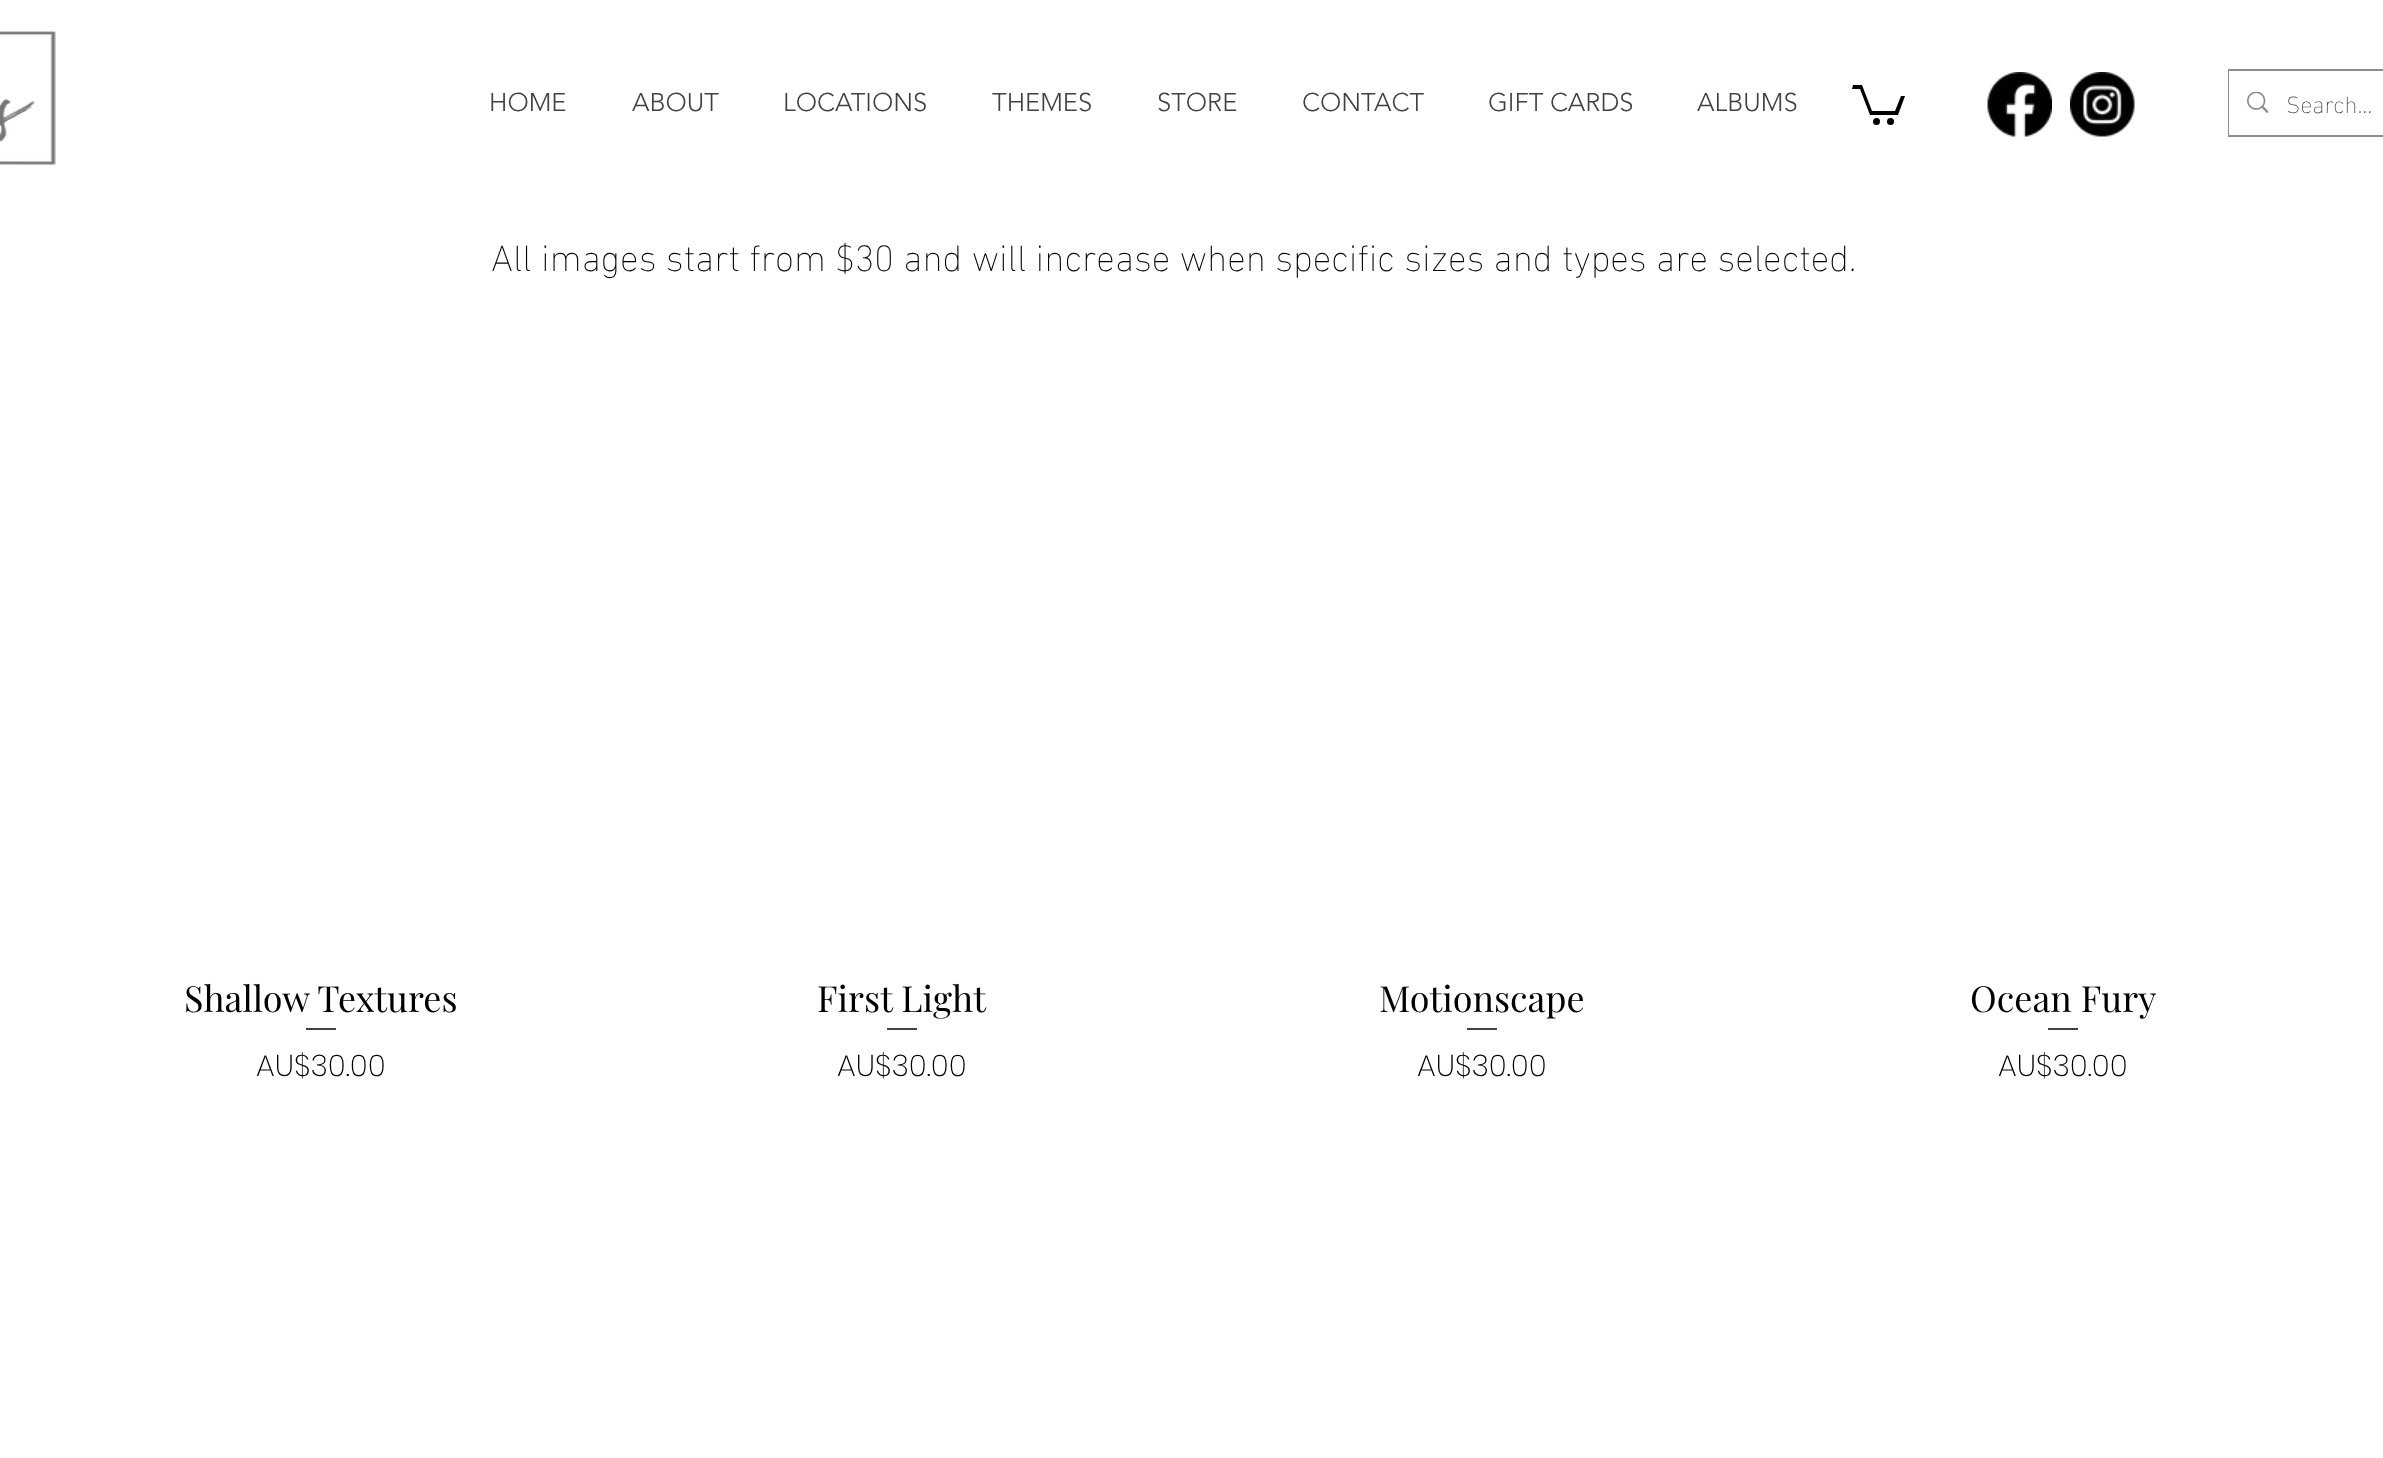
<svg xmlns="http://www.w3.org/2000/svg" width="2383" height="1458">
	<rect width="100%" height="100%" fill="#FFFFFF" />
	<image x="0" y="31" width="56" height="134" href="assets/img1.png" />
	<g font-family="'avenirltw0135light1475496'" font-size="25.5" font-weight="300" fill="#414141">
		<text x="489" y="111">HOME</text>
		<text x="632" y="111">ABOUT</text>
		<text x="783" y="111">LOCATIONS</text>
		<text x="992" y="111">THEMES</text>
		<text x="1157" y="111">STORE</text>
		<text x="1302" y="111">CONTACT</text>
		<text x="1488" y="111">GIFT CARDS</text>
		<text x="1697" y="111">ALBUMS</text>
	</g>
	<path d="M1905 96L1898 115H1870L1860 89H1852L1853 85H1862L1872 111H1895L1901 96" fill="#000000" />
	<circle cx="1890.5" cy="121.5" r="3.5" fill="#000000" />
	<circle cx="1876.5" cy="121.5" r="3.5" fill="#000000" />
	<image x="1987" y="72" width="65" height="65" href="assets/img2.png" />
	<image x="2070" y="72" width="65" height="65" href="assets/img3.png" />
	<rect x="2229" y="70" width="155" height="66" fill="none" stroke="#8D8D8D" stroke-width="2" />
	<rect x="2229" y="71" width="1" height="64" fill="#FFFFFF" />
	<image x="2247" y="92" width="21" height="21" href="assets/img4.png" />
	<text x="2286" y="113" font-family="'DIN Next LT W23'" font-size="24" font-weight="200" fill="#414141">Search...</text>
	<text x="491" y="271" font-family="'DIN Next LT W23'" font-size="37.5" font-weight="200" fill="#000000">All images start from $30 and will increase when specific sizes and types are selected.</text>
	<text x="184" y="1012" font-family="Playfair Display" font-size="36" fill="#000000">Shallow Textures</text>
	<rect x="306" y="1028" width="30" height="2" fill="#414141" />
	<text x="256" y="1076" font-family="Poppins" font-size="30" font-weight="200" fill="#000000">AU$30.00</text>
	<text x="817" y="1012" font-family="Playfair Display" font-size="36" fill="#000000">First Light</text>
	<rect x="887" y="1028" width="30" height="2" fill="#414141" />
	<text x="837" y="1076" font-family="Poppins" font-size="30" font-weight="200" fill="#000000">AU$30.00</text>
	<text x="1379" y="1012" font-family="Playfair Display" font-size="36" fill="#000000">Motionscape</text>
	<rect x="1467" y="1028" width="30" height="2" fill="#414141" />
	<text x="1417" y="1076" font-family="Poppins" font-size="30" font-weight="200" fill="#000000">AU$30.00</text>
	<text x="1970" y="1012" font-family="Playfair Display" font-size="36" fill="#000000">Ocean Fury</text>
	<rect x="2048" y="1028" width="30" height="2" fill="#414141" />
	<text x="1998" y="1076" font-family="Poppins" font-size="30" font-weight="200" fill="#000000">AU$30.00</text>
</svg>
